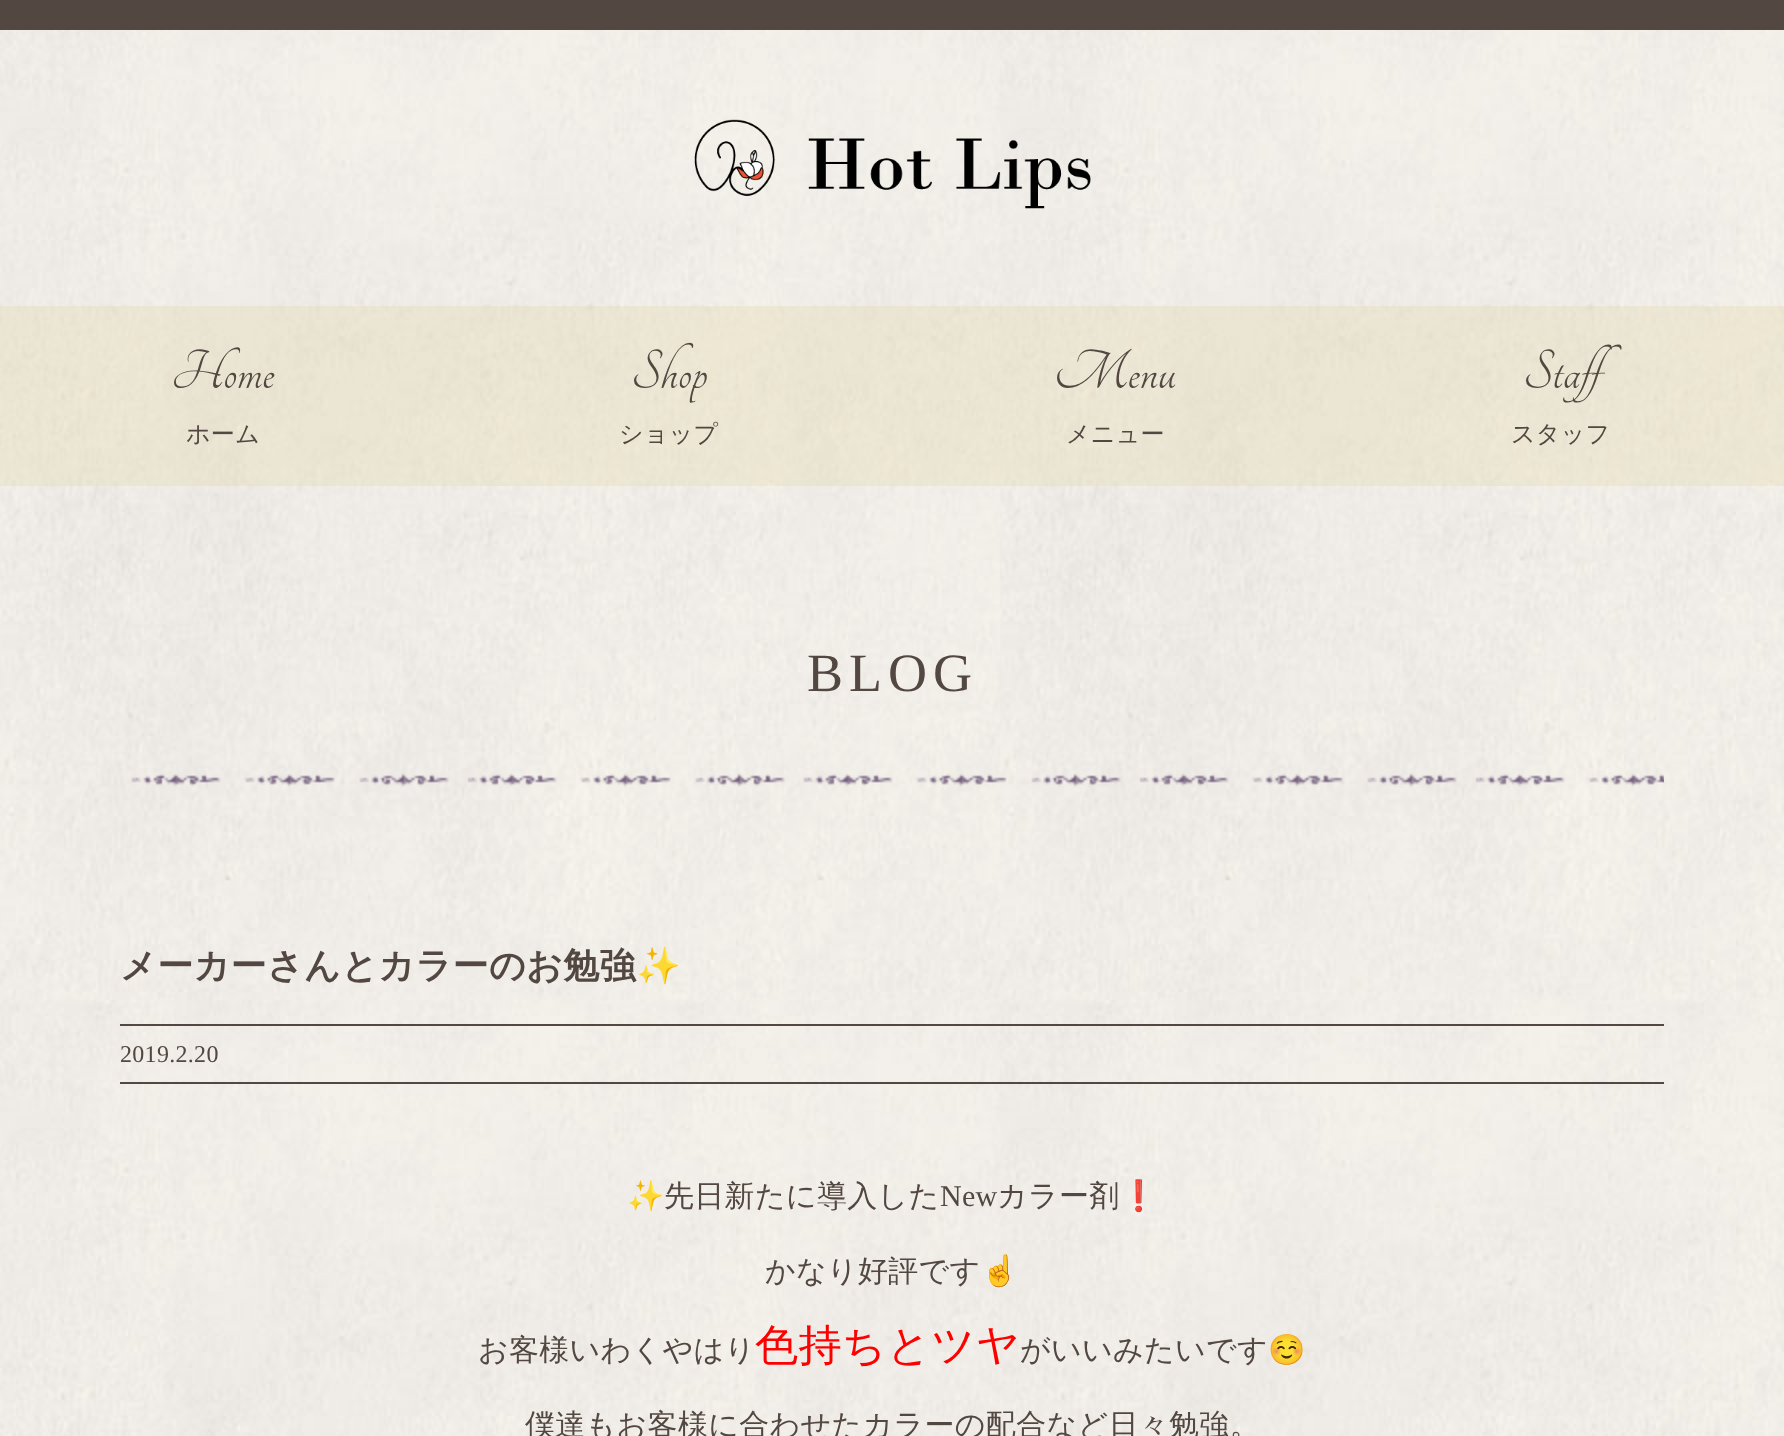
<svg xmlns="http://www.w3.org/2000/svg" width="1784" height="1436">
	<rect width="100%" height="100%" fill="#FFFFFF" />
	<image x="0" y="30" width="1784" height="1406" href="assets/img1.png" />
	<rect x="0" y="0" width="1784" height="30" fill="#534741" />
	<image x="694" y="119" width="397" height="90" href="assets/img2.png" />
	<rect x="0" y="306" width="1784" height="180" fill="#E0D5A5" fill-opacity="0.3" />
	<text x="171" y="388" font-family="Tangerine" font-size="60" letter-spacing="0.3" fill="#534741">Home</text>
	<text x="186" y="442" font-family="WenQuanYi Zen Hei" font-size="24" font-weight="500" letter-spacing="0.3" fill="#534741">ホーム</text>
	<text x="631" y="388" font-family="Tangerine" font-size="60" letter-spacing="0.3" fill="#534741">Shop</text>
	<text x="619" y="442" font-family="WenQuanYi Zen Hei" font-size="24" font-weight="500" letter-spacing="0.3" fill="#534741">ショップ</text>
	<text x="1054" y="388" font-family="Tangerine" font-size="60" letter-spacing="0.3" fill="#534741">Menu</text>
	<text x="1066" y="442" font-family="WenQuanYi Zen Hei" font-size="24" font-weight="500" letter-spacing="0.3" fill="#534741">メニュー</text>
	<text x="1523" y="388" font-family="Tangerine" font-size="60" letter-spacing="0.3" fill="#534741">Staff</text>
	<text x="1511" y="442" font-family="WenQuanYi Zen Hei" font-size="24" font-weight="500" letter-spacing="0.3" fill="#534741">スタッフ</text>
	<text x="807" y="691" font-family="Liberation Serif" font-size="54" letter-spacing="6" fill="#534741">BLOG</text>
	<image x="131" y="773" width="1533" height="14" href="assets/img3.png" />
	<text x="120" y="978" font-family="WenQuanYi Zen Hei" font-size="36" font-weight="700" letter-spacing="0.3" fill="#534741">メーカーさんとカラーのお勉強</text>
	<text x="636" y="978" font-family="Noto Color Emoji" font-size="36" font-weight="700" letter-spacing="0.3" fill="#534741">✨</text>
	<rect x="120" y="1024" width="1544" height="2" fill="#534741" />
	<rect x="120" y="1082" width="1544" height="2" fill="#534741" />
	<text x="120" y="1062" font-family="Liberation Serif" font-size="24" letter-spacing="0.3" fill="#534741">2019.2.20</text>
	<text x="627" y="1206" font-family="Noto Color Emoji" font-size="30" letter-spacing="0.3" fill="#534741">✨</text>
	<text x="664" y="1206" font-family="WenQuanYi Zen Hei" font-size="30" font-weight="500" letter-spacing="0.3" fill="#534741">先日新たに導入した</text>
	<text x="940" y="1206" font-family="Liberation Serif" font-size="30" letter-spacing="0.3" fill="#534741">New</text>
	<text x="997" y="1206" font-family="WenQuanYi Zen Hei" font-size="30" font-weight="500" letter-spacing="0.3" fill="#534741">カラー剤</text>
	<text x="1120" y="1206" font-family="Noto Color Emoji" font-size="30" letter-spacing="0.3" fill="#534741">❗️</text>
	<text x="765" y="1281" font-family="WenQuanYi Zen Hei" font-size="30" font-weight="500" letter-spacing="0.3" fill="#534741">かなり好評です</text>
	<text x="981" y="1281" font-family="Noto Color Emoji" font-size="30" letter-spacing="0.3" fill="#534741">☝️</text>
	<text x="478" y="1360" font-family="WenQuanYi Zen Hei" font-size="30" font-weight="500" letter-spacing="0.3" fill="#534741">お客様いわくやはり</text>
	<text x="755" y="1360" font-family="WenQuanYi Zen Hei" font-size="43.25" font-weight="500" letter-spacing="0.3" fill="#FF0000">色持ちとツヤ</text>
	<text x="1020" y="1360" font-family="WenQuanYi Zen Hei" font-size="30" font-weight="500" letter-spacing="0.3" fill="#534741">がいいみたいです</text>
	<text x="1268" y="1360" font-family="Noto Color Emoji" font-size="30" letter-spacing="0.3" fill="#534741">☺️</text>
	<text x="525" y="1435" font-family="WenQuanYi Zen Hei" font-size="30" font-weight="500" letter-spacing="0.3" fill="#534741">僕達もお客様に合わせたカラーの配合など日々勉強。</text>
</svg>
